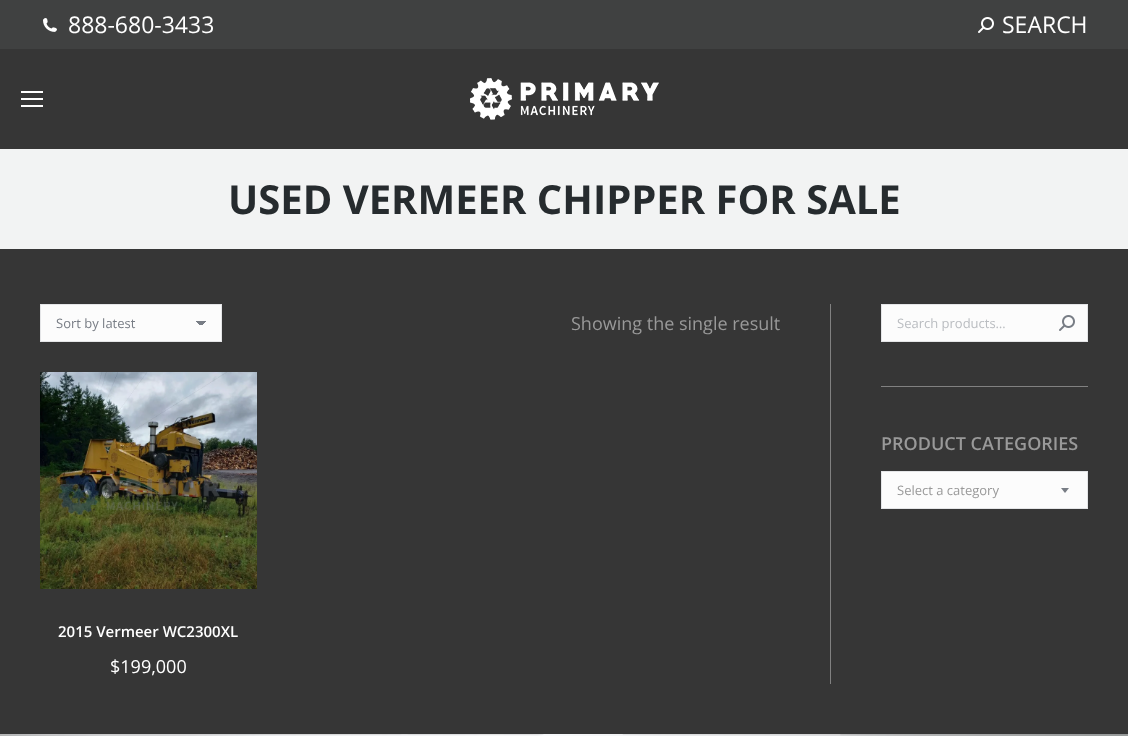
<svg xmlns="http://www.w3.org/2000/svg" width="1128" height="736">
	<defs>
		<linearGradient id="g1" gradientUnits="userSpaceOnUse" x1="201" y1="321" x2="206" y2="326"><stop offset="0.5" stop-color="#787D85" /><stop offset="0.5" stop-color="#FCFCFC" /></linearGradient>
		<linearGradient id="g2" gradientUnits="userSpaceOnUse" x1="196" y1="326" x2="201" y2="321"><stop offset="0.5" stop-color="#FCFCFC" /><stop offset="0.5" stop-color="#787D85" /></linearGradient>
	</defs>
	<rect width="100%" height="100%" fill="#363636" />
	<rect x="0" y="0" width="1128" height="49" fill="#404141" />
	<image x="43" y="18" width="14" height="14" href="assets/img1.png" />
	<text x="68" y="33" font-family="Open Sans" font-size="23" fill="#FFFFFF">888-680-3433</text>
	<image x="978" y="17" width="16" height="16" href="assets/img2.png" />
	<text x="1002" y="33" font-family="Open Sans" font-size="23" fill="#FFFFFF">SEARCH</text>
	<rect x="21" y="91" width="22" height="2" fill="#FFFFFF" />
	<rect x="21" y="98" width="22" height="2" fill="#FFFFFF" />
	<rect x="21" y="105" width="22" height="2" fill="#FFFFFF" />
	<image x="470" y="78" width="189" height="42" href="assets/img3.png" />
	<rect x="0" y="149" width="1128" height="100" fill="#F2F3F3" />
	<text x="228" y="214" font-family="Open Sans" font-size="40" font-weight="700" fill="#262B2E">USED VERMEER CHIPPER FOR SALE</text>
	<rect x="41" y="305" width="180" height="36" fill="#FCFCFC" />
	<rect x="201" y="321" width="5" height="4" fill="url(#g1)" />
	<rect x="196" y="321" width="5" height="4" fill="url(#g2)" />
	<rect x="40.5" y="304.5" width="181" height="37" fill="none" stroke="#E4E5E7" />
	<text x="56" y="328" font-family="Open Sans" font-size="13" fill="#787D85">Sort by latest</text>
	<text x="571" y="330" font-family="Open Sans" font-size="18" fill="#999999">Showing the single result</text>
	<image x="40" y="372" width="217" height="217" href="assets/img4.png" />
	<text x="58" y="637" font-family="Open Sans" font-size="15" font-weight="600" fill="#FFFFFF">2015 Vermeer WC2300XL</text>
	<text x="110" y="673" font-family="Open Sans" font-size="18" fill="#FFFFFF">$199,000</text>
	<rect x="830" y="304" width="1" height="380" fill="#818181" />
	<rect x="881.5" y="304.5" width="206" height="37" fill="#FCFCFC" stroke="#E4E5E7" />
	<text x="897" y="328" font-family="Open Sans" font-size="13" fill="#BABDC1">Search products…</text>
	<image x="1059" y="315" width="16" height="16" href="assets/img5.png" />
	<rect x="881" y="386" width="207" height="1" fill="#818181" />
	<text x="881" y="450" font-family="Open Sans" font-size="18" font-weight="600" fill="#999999">PRODUCT CATEGORIES</text>
	<rect x="881.5" y="471.5" width="206" height="37" fill="#FCFCFC" stroke="#E4E5E7" />
	<text x="897" y="495" font-family="Open Sans" font-size="13" fill="#999999">Select a category</text>
	<path d="M1061 488H1069L1065 493Z" fill="#787D85" />
	<image x="0" y="734" width="1128" height="2" href="assets/img6.png" />
</svg>
